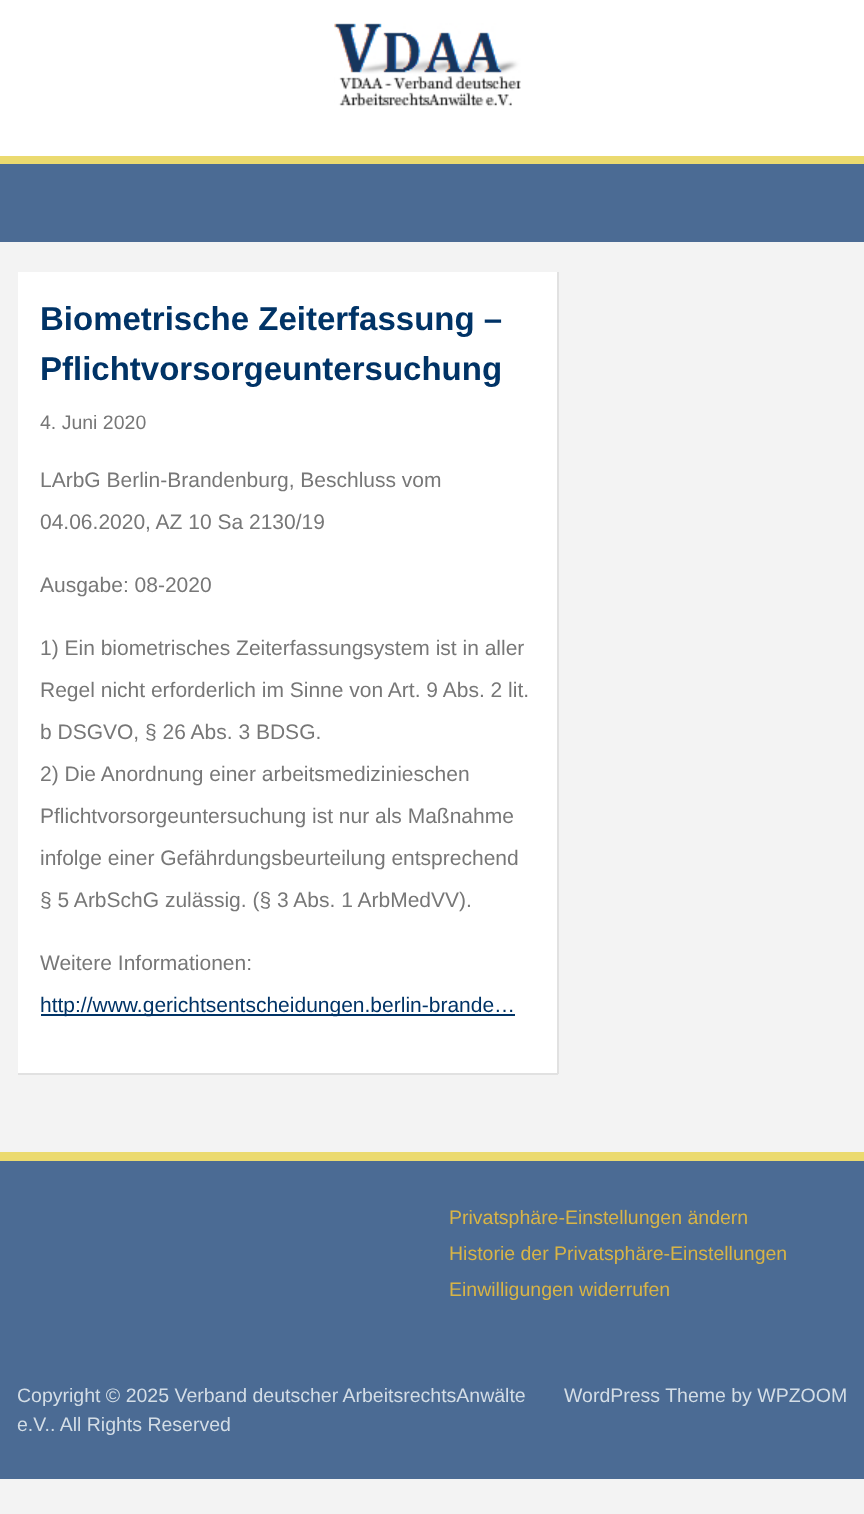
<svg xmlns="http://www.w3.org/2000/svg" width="864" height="1514">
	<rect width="100%" height="100%" fill="#F3F3F3" />
	<rect x="0" y="0" width="864" height="156" fill="#FFFFFF" />
	<image x="334" y="23" width="187" height="84" href="assets/img1.png" />
	<rect x="0" y="164" width="864" height="78" fill="#4B6B94" />
	<rect x="0" y="156" width="864" height="8" fill="#EBDA6F" />
	<rect x="18" y="272" width="539" height="801" fill="#FFFFFF" />
	<rect x="557" y="272" width="2" height="802" fill="#E1E1E1" />
	<rect x="18" y="1073" width="540" height="2" fill="#E1E1E1" />
	<g font-family="Liberation Sans" font-size="33" font-weight="700" fill="#003366">
		<text x="40" y="330">Biometrische Zeiterfassung –</text>
		<text x="40" y="380">Pflichtvorsorgeuntersuchung</text>
	</g>
	<text x="40" y="429" font-family="Liberation Sans" font-size="19.5" fill="#777777">4. Juni 2020</text>
	<g font-family="Liberation Sans" font-size="21" fill="#777777">
		<text x="40" y="487">LArbG Berlin-Brandenburg, Beschluss vom</text>
		<text x="40" y="529">04.06.2020, AZ 10 Sa 2130/19</text>
		<text x="40" y="592">Ausgabe: 08-2020</text>
		<text x="40" y="655">1) Ein biometrisches Zeiterfassungsystem ist in aller</text>
		<text x="40" y="697">Regel nicht erforderlich im Sinne von Art. 9 Abs. 2 lit.</text>
		<text x="40" y="739">b DSGVO, § 26 Abs. 3 BDSG.</text>
		<text x="40" y="781">2) Die Anordnung einer arbeitsmedizinieschen</text>
		<text x="40" y="823">Pflichtvorsorgeuntersuchung ist nur als Maßnahme</text>
		<text x="40" y="865">infolge einer Gefährdungsbeurteilung entsprechend</text>
		<text x="40" y="907">§ 5 ArbSchG zulässig. (§ 3 Abs. 1 ArbMedVV).</text>
		<text x="40" y="970">Weitere Informationen:</text>
	</g>
	<rect x="41" y="1014" width="474" height="2" fill="#003366" />
	<text x="40" y="1012" font-family="Liberation Sans" font-size="21" fill="#003366">http://www.gerichtsentscheidungen.berlin-brande…</text>
	<rect x="0" y="1161" width="864" height="318" fill="#4B6B94" />
	<rect x="0" y="1152" width="864" height="9" fill="#EBDA6F" />
	<g font-family="Liberation Sans" font-size="19.5" fill="#D8B446">
		<text x="449" y="1224">Privatsphäre-Einstellungen ändern</text>
		<text x="449" y="1260">Historie der Privatsphäre-Einstellungen</text>
		<text x="449" y="1296">Einwilligungen widerrufen</text>
	</g>
	<g font-family="Liberation Sans" font-size="19.5" fill="#D3DDE6">
		<text x="17" y="1402">Copyright © 2025 Verband deutscher ArbeitsrechtsAnwälte</text>
		<text x="17" y="1431">e.V.. All Rights Reserved</text>
		<text x="564" y="1402">WordPress Theme by WPZOOM</text>
	</g>
</svg>
